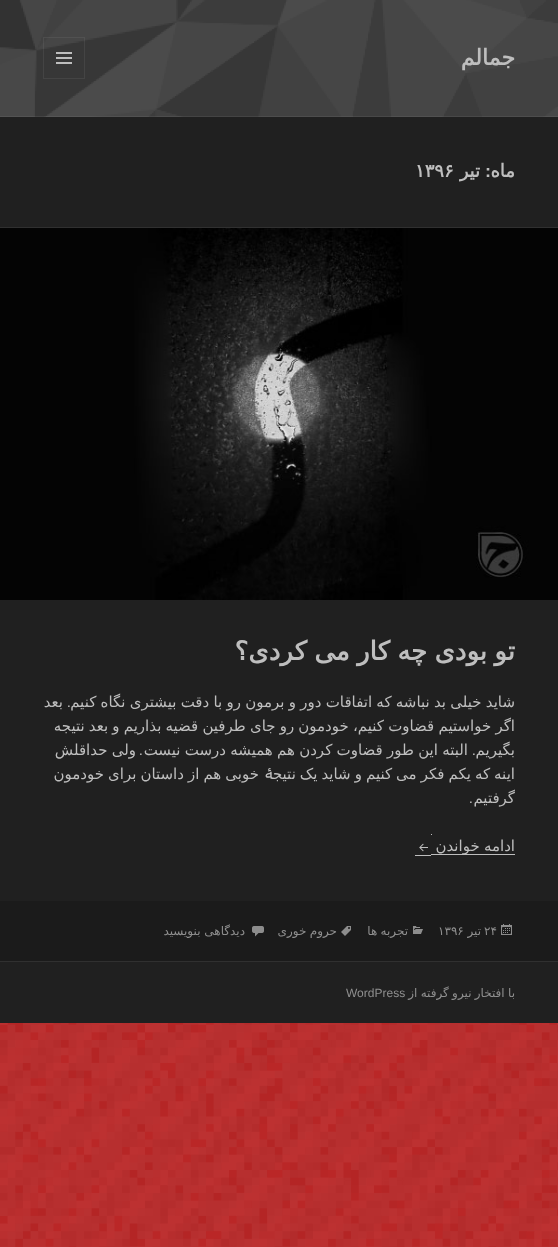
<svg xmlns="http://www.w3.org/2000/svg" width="558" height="1247">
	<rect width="100%" height="100%" fill="#BA2727" />
	<image x="0" y="1023" width="558" height="224" href="assets/img1.png" />
	<rect x="0" y="0" width="558" height="227" fill="#202020" />
	<image x="0" y="0" width="558" height="117" href="assets/img2.png" />
	<rect x="0" y="116" width="558" height="1" fill="#BEBEBE" fill-opacity="0.1" />
	<text x="515" y="65" font-family="DejaVu Sans" font-size="22" font-weight="700" direction="rtl" fill="#BEBEBE">جمالم</text>
	<rect x="43.5" y="37.5" width="41" height="41" fill="none" stroke="#BEBEBE" stroke-opacity="0.1" />
	<image x="56" y="52" width="16" height="12" href="assets/img3.png" />
	<rect x="0" y="227" width="558" height="1" fill="#303030" />
	<text x="515" y="177" font-family="DejaVu Sans" font-size="18" font-weight="700" direction="rtl" fill="#BEBEBE">ماه</text>
	<text x="491" y="177" font-family="Liberation Sans" font-size="18" font-weight="700" direction="rtl" fill="#BEBEBE">:</text>
	<text x="480" y="177" font-family="DejaVu Sans" font-size="18" font-weight="700" direction="rtl" fill="#BEBEBE">تیر</text>
	<text x="415" y="177" font-family="DejaVu Sans" font-size="18" font-weight="700" fill="#BEBEBE">۱۳۹۶</text>
	<rect x="0" y="600" width="558" height="301" fill="#202020" />
	<image x="0" y="228" width="558" height="372" href="assets/img4.png" />
	<text x="515" y="660" word-spacing="-1" font-family="DejaVu Sans" font-size="26" font-weight="700" direction="rtl" fill="#BEBEBE">تو بودی چه کار می کردی؟</text>
	<text x="515" y="707" word-spacing="-0.5" font-family="DejaVu Sans" font-size="15" direction="rtl" fill="#BEBEBE">شاید خیلی بد نباشه که اتفاقات دور و برمون رو با دقت بیشتری نگاه کنیم</text>
	<text x="71" y="707" font-family="Liberation Sans" font-size="15" direction="rtl" fill="#BEBEBE">.</text>
	<g font-family="DejaVu Sans" font-size="15" direction="rtl" fill="#BEBEBE">
		<text x="63" y="707">بعد</text>
		<text x="515" y="731" word-spacing="-0.6">اگر خواستیم قضاوت کنیم، خودمون رو جای طرفین قضیه بذاریم و بعد نتیجه</text>
		<text x="515" y="755">بگیریم</text>
	</g>
	<text x="476" y="755" font-family="Liberation Sans" font-size="15" direction="rtl" fill="#BEBEBE">.</text>
	<text x="468" y="755" word-spacing="-0.5" font-family="DejaVu Sans" font-size="15" direction="rtl" fill="#BEBEBE">البته این طور قضاوت کردن هم همیشه درست نیست</text>
	<text x="143" y="755" font-family="Liberation Sans" font-size="15" direction="rtl" fill="#BEBEBE">.</text>
	<g font-family="DejaVu Sans" font-size="15" direction="rtl" fill="#BEBEBE">
		<text x="136" y="755" word-spacing="-0.5">ولی حداقلش</text>
		<text x="515" y="779" word-spacing="-0.75">اینه که یکم فکر می کنیم و شاید یک نتیج‍</text>
	</g>
	<text x="273" y="779" font-family="Liberation Sans" font-size="15" direction="rtl" fill="#BEBEBE">‍ۀ</text>
	<g font-family="DejaVu Sans" font-size="15" direction="rtl" fill="#BEBEBE">
		<text x="259" y="779" word-spacing="-0.75">خوبی هم از داستان برای خودمون</text>
		<text x="515" y="803">گرفتیم</text>
	</g>
	<text x="473" y="803" font-family="Liberation Sans" font-size="15" direction="rtl" fill="#BEBEBE">.</text>
	<rect x="431" y="854" width="84" height="1" fill="#BEBEBE" />
	<rect x="431" y="834" width="1" height="1" fill="#BEBEBE" />
	<rect x="415" y="855" width="16" height="1" fill="#BEBEBE" />
	<text x="515" y="851" word-spacing="-0.6" font-family="DejaVu Sans" font-size="15" direction="rtl" fill="#BEBEBE">ادامه خواندن</text>
	<image x="419" y="843" width="9" height="9" href="assets/img5.png" />
	<rect x="0" y="901" width="558" height="60" fill="#1B1B1B" />
	<image x="501" y="924" width="11" height="11" href="assets/img6.png" />
	<text x="484" y="935" font-family="DejaVu Sans" font-size="12" fill="#8F8F8F">۲۴</text>
	<text x="481" y="935" font-family="DejaVu Sans" font-size="12" direction="rtl" fill="#8F8F8F">تیر</text>
	<text x="438" y="935" font-family="DejaVu Sans" font-size="12" fill="#8F8F8F">۱۳۹۶</text>
	<image x="413" y="926" width="10" height="8" href="assets/img7.png" />
	<text x="408" y="935" word-spacing="-0.5" font-family="DejaVu Sans" font-size="12" direction="rtl" fill="#8F8F8F">تجربه ها</text>
	<image x="341" y="926" width="10" height="10" href="assets/img8.png" />
	<text x="337" y="935" word-spacing="-0.5" font-family="DejaVu Sans" font-size="12" direction="rtl" fill="#8F8F8F">حروم خوری</text>
	<image x="252" y="926" width="12" height="11" href="assets/img9.png" />
	<text x="245" y="935" font-family="DejaVu Sans" font-size="12" direction="rtl" fill="#8F8F8F">دیدگاهی بنویسید</text>
	<rect x="0" y="962" width="558" height="61" fill="#202020" />
	<rect x="0" y="961" width="558" height="1" fill="#303030" />
	<text x="515" y="997" word-spacing="-0.5" font-family="DejaVu Sans" font-size="12" direction="rtl" fill="#8F8F8F">با افتخار نیرو گرفته از</text>
	<text x="346" y="997" font-family="Liberation Sans" font-size="12" fill="#8F8F8F">WordPress</text>
</svg>
